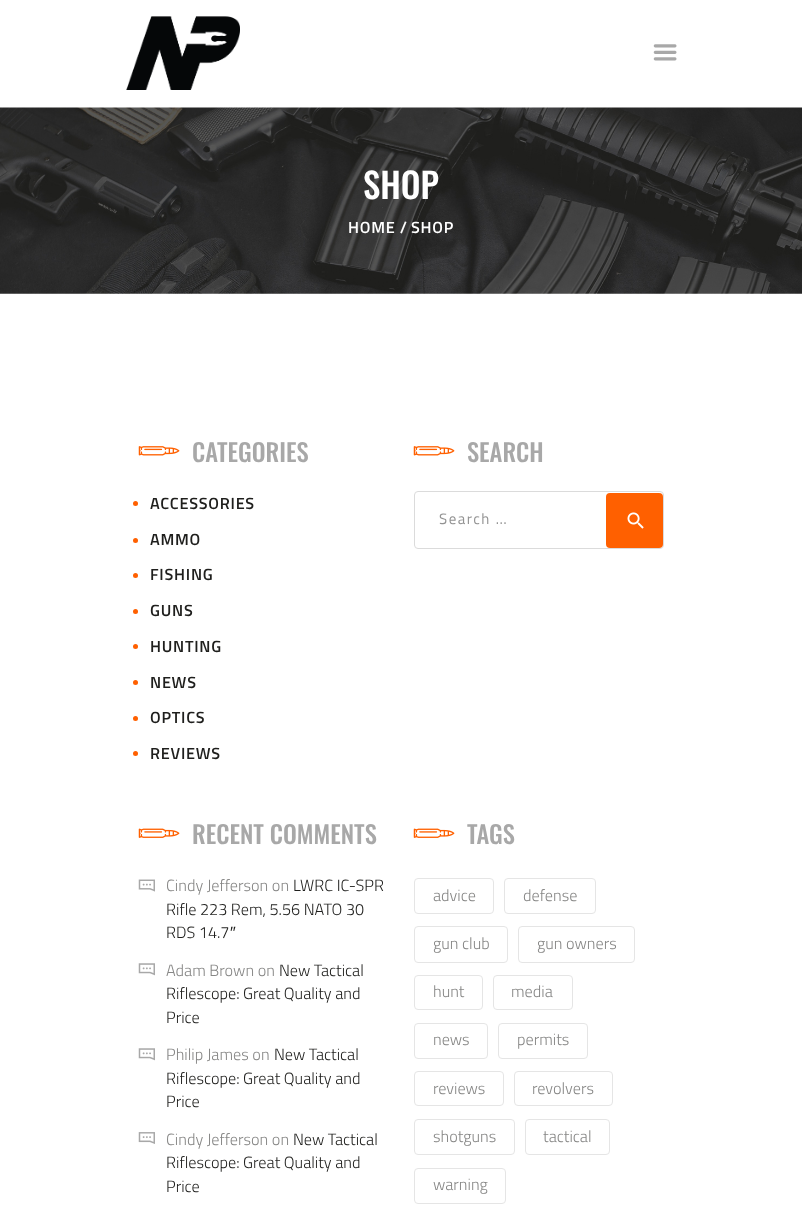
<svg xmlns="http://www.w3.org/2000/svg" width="802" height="1217">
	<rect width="100%" height="100%" fill="#FFFFFF" />
	<image x="126" y="16" width="114" height="74" href="assets/img1.png" />
	<image x="653" y="44" width="24" height="17" href="assets/img2.png" />
	<image x="0" y="107" width="802" height="187" href="assets/img3.png" />
	<text x="363" y="199" font-family="Oswald" font-size="35" font-weight="500" fill="#FFFFFF">SHOP</text>
	<g font-family="Titillium Web" font-size="16.25" font-weight="600" letter-spacing="0.75" fill="#FFFFFF">
		<text x="348" y="233">HOME /</text>
		<text x="411" y="233">SHOP</text>
	</g>
	<image x="138" y="446" width="42" height="10" href="assets/img4.png" />
	<text x="192" y="462" font-family="Oswald" font-size="24.5" font-weight="500" fill="#A8A8A8">CATEGORIES</text>
	<circle cx="135.5" cy="503.5" r="2.5" fill="#FF6000" />
	<text x="150" y="509" font-family="Titillium Web" font-size="16.25" font-weight="600" letter-spacing="0.75" fill="#1F1F1D">ACCESSORIES</text>
	<circle cx="135.5" cy="540.5" r="2.5" fill="#FF6000" />
	<text x="150" y="545" font-family="Titillium Web" font-size="16.25" font-weight="600" letter-spacing="0.75" fill="#1F1F1D">AMMO</text>
	<circle cx="135.5" cy="575.5" r="2.5" fill="#FF6000" />
	<text x="150" y="580" font-family="Titillium Web" font-size="16.25" font-weight="600" letter-spacing="0.75" fill="#1F1F1D">FISHING</text>
	<circle cx="135.5" cy="611.5" r="2.5" fill="#FF6000" />
	<text x="150" y="616" font-family="Titillium Web" font-size="16.25" font-weight="600" letter-spacing="0.75" fill="#1F1F1D">GUNS</text>
	<circle cx="135.5" cy="646.5" r="2.5" fill="#FF6000" />
	<text x="150" y="652" font-family="Titillium Web" font-size="16.25" font-weight="600" letter-spacing="0.75" fill="#1F1F1D">HUNTING</text>
	<circle cx="135.5" cy="682.5" r="2.5" fill="#FF6000" />
	<text x="150" y="688" font-family="Titillium Web" font-size="16.25" font-weight="600" letter-spacing="0.75" fill="#1F1F1D">NEWS</text>
	<circle cx="135.5" cy="718.5" r="2.5" fill="#FF6000" />
	<text x="150" y="723" font-family="Titillium Web" font-size="16.25" font-weight="600" letter-spacing="0.75" fill="#1F1F1D">OPTICS</text>
	<circle cx="135.5" cy="753.5" r="2.5" fill="#FF6000" />
	<text x="150" y="759" font-family="Titillium Web" font-size="16.25" font-weight="600" letter-spacing="0.75" fill="#1F1F1D">REVIEWS</text>
	<image x="413" y="446" width="42" height="10" href="assets/img4.png" />
	<text x="467" y="462" font-family="Oswald" font-size="24.5" font-weight="500" fill="#A8A8A8">SEARCH</text>
	<rect x="414.5" y="491.5" width="249" height="57" rx="3.5" fill="none" stroke="#DBDBDB" />
	<rect x="606" y="493" width="57" height="55" rx="4" fill="#FF6000" />
	<text x="439" y="524" font-family="Titillium Web" font-size="15" letter-spacing="1.5" fill="#929292">Search …</text>
	<image x="627" y="512" width="17" height="17" href="assets/img5.png" />
	<image x="138" y="828" width="42" height="10" href="assets/img6.png" />
	<text x="192" y="844" font-family="Oswald" font-size="24.5" font-weight="500" fill="#A8A8A8">RECENT COMMENTS</text>
	<image x="138" y="879" width="17" height="13" href="assets/img7.png" />
	<text x="166" y="891" font-family="Titillium Web" font-size="16.25" font-weight="300" fill="#878786">Cindy Jefferson on</text>
	<g font-family="Titillium Web" font-size="16.25" font-weight="300" fill="#1F1F1D">
		<text x="293" y="891">LWRC IC-SPR</text>
		<text x="166" y="915">Rifle 223 Rem, 5.56 NATO 30</text>
		<text x="166" y="938">RDS 14.7</text>
	</g>
	<text x="230" y="938" font-family="Liberation Sans" font-size="16.25" fill="#1F1F1D">″</text>
	<image x="138" y="963" width="17" height="13" href="assets/img8.png" />
	<text x="166" y="976" font-family="Titillium Web" font-size="16.25" font-weight="300" fill="#878786">Adam Brown on</text>
	<g font-family="Titillium Web" font-size="16.25" font-weight="300" fill="#1F1F1D">
		<text x="279" y="976">New Tactical</text>
		<text x="166" y="999">Riflescope: Great Quality and</text>
		<text x="166" y="1023">Price</text>
	</g>
	<image x="138" y="1048" width="17" height="13" href="assets/img8.png" />
	<text x="166" y="1060" font-family="Titillium Web" font-size="16.25" font-weight="300" fill="#878786">Philip James on</text>
	<g font-family="Titillium Web" font-size="16.25" font-weight="300" fill="#1F1F1D">
		<text x="274" y="1060">New Tactical</text>
		<text x="166" y="1084">Riflescope: Great Quality and</text>
		<text x="166" y="1107">Price</text>
	</g>
	<image x="138" y="1132" width="17" height="12" href="assets/img9.png" />
	<text x="166" y="1145" font-family="Titillium Web" font-size="16.25" font-weight="300" fill="#878786">Cindy Jefferson on</text>
	<g font-family="Titillium Web" font-size="16.25" font-weight="300" fill="#1F1F1D">
		<text x="293" y="1145">New Tactical</text>
		<text x="166" y="1168">Riflescope: Great Quality and</text>
		<text x="166" y="1192">Price</text>
	</g>
	<image x="413" y="828" width="42" height="10" href="assets/img6.png" />
	<text x="467" y="844" font-family="Oswald" font-size="24.5" font-weight="500" fill="#A8A8A8">TAGS</text>
	<rect x="414.5" y="878.5" width="79" height="35" rx="3.5" fill="none" stroke="#E5E5E5" />
	<text x="433" y="901" font-family="Titillium Web" font-size="16.25" font-weight="300" fill="#878786">advice</text>
	<rect x="504.5" y="878.5" width="91" height="35" rx="3.5" fill="none" stroke="#E5E5E5" />
	<text x="523" y="901" font-family="Titillium Web" font-size="16.25" font-weight="300" fill="#878786">defense</text>
	<rect x="414.5" y="926.5" width="93" height="36" rx="3.5" fill="none" stroke="#E5E5E5" />
	<text x="433" y="949" font-family="Titillium Web" font-size="16.25" font-weight="300" fill="#878786">gun club</text>
	<rect x="518.5" y="926.5" width="116" height="36" rx="3.5" fill="none" stroke="#E5E5E5" />
	<text x="537" y="949" font-family="Titillium Web" font-size="16.25" font-weight="300" fill="#878786">gun owners</text>
	<rect x="414.5" y="975.5" width="68" height="34" rx="3.5" fill="none" stroke="#E5E5E5" />
	<text x="433" y="997" font-family="Titillium Web" font-size="16.25" font-weight="300" fill="#878786">hunt</text>
	<rect x="493.5" y="975.5" width="79" height="34" rx="3.5" fill="none" stroke="#E5E5E5" />
	<text x="511" y="997" font-family="Titillium Web" font-size="16.25" font-weight="300" fill="#878786">media</text>
	<rect x="414.5" y="1023.5" width="73" height="35" rx="3.5" fill="none" stroke="#E5E5E5" />
	<text x="433" y="1045" font-family="Titillium Web" font-size="16.25" font-weight="300" fill="#878786">news</text>
	<rect x="498.5" y="1023.5" width="89" height="35" rx="3.5" fill="none" stroke="#E5E5E5" />
	<text x="517" y="1045" font-family="Titillium Web" font-size="16.25" font-weight="300" fill="#878786">permits</text>
	<rect x="414.5" y="1071.5" width="89" height="34" rx="3.5" fill="none" stroke="#E5E5E5" />
	<text x="433" y="1094" font-family="Titillium Web" font-size="16.25" font-weight="300" fill="#878786">reviews</text>
	<rect x="514.5" y="1071.5" width="98" height="34" rx="3.5" fill="none" stroke="#E5E5E5" />
	<text x="532" y="1094" font-family="Titillium Web" font-size="16.25" font-weight="300" fill="#878786">revolvers</text>
	<rect x="414.5" y="1119.5" width="100" height="35" rx="3.5" fill="none" stroke="#E5E5E5" />
	<text x="433" y="1142" font-family="Titillium Web" font-size="16.25" font-weight="300" fill="#878786">shotguns</text>
	<rect x="525.5" y="1119.5" width="84" height="35" rx="3.5" fill="none" stroke="#E5E5E5" />
	<text x="543" y="1142" font-family="Titillium Web" font-size="16.25" font-weight="300" fill="#878786">tactical</text>
	<rect x="414.5" y="1168.5" width="91" height="35" rx="3.5" fill="none" stroke="#E5E5E5" />
	<text x="433" y="1190" font-family="Titillium Web" font-size="16.25" font-weight="300" fill="#878786">warning</text>
</svg>
